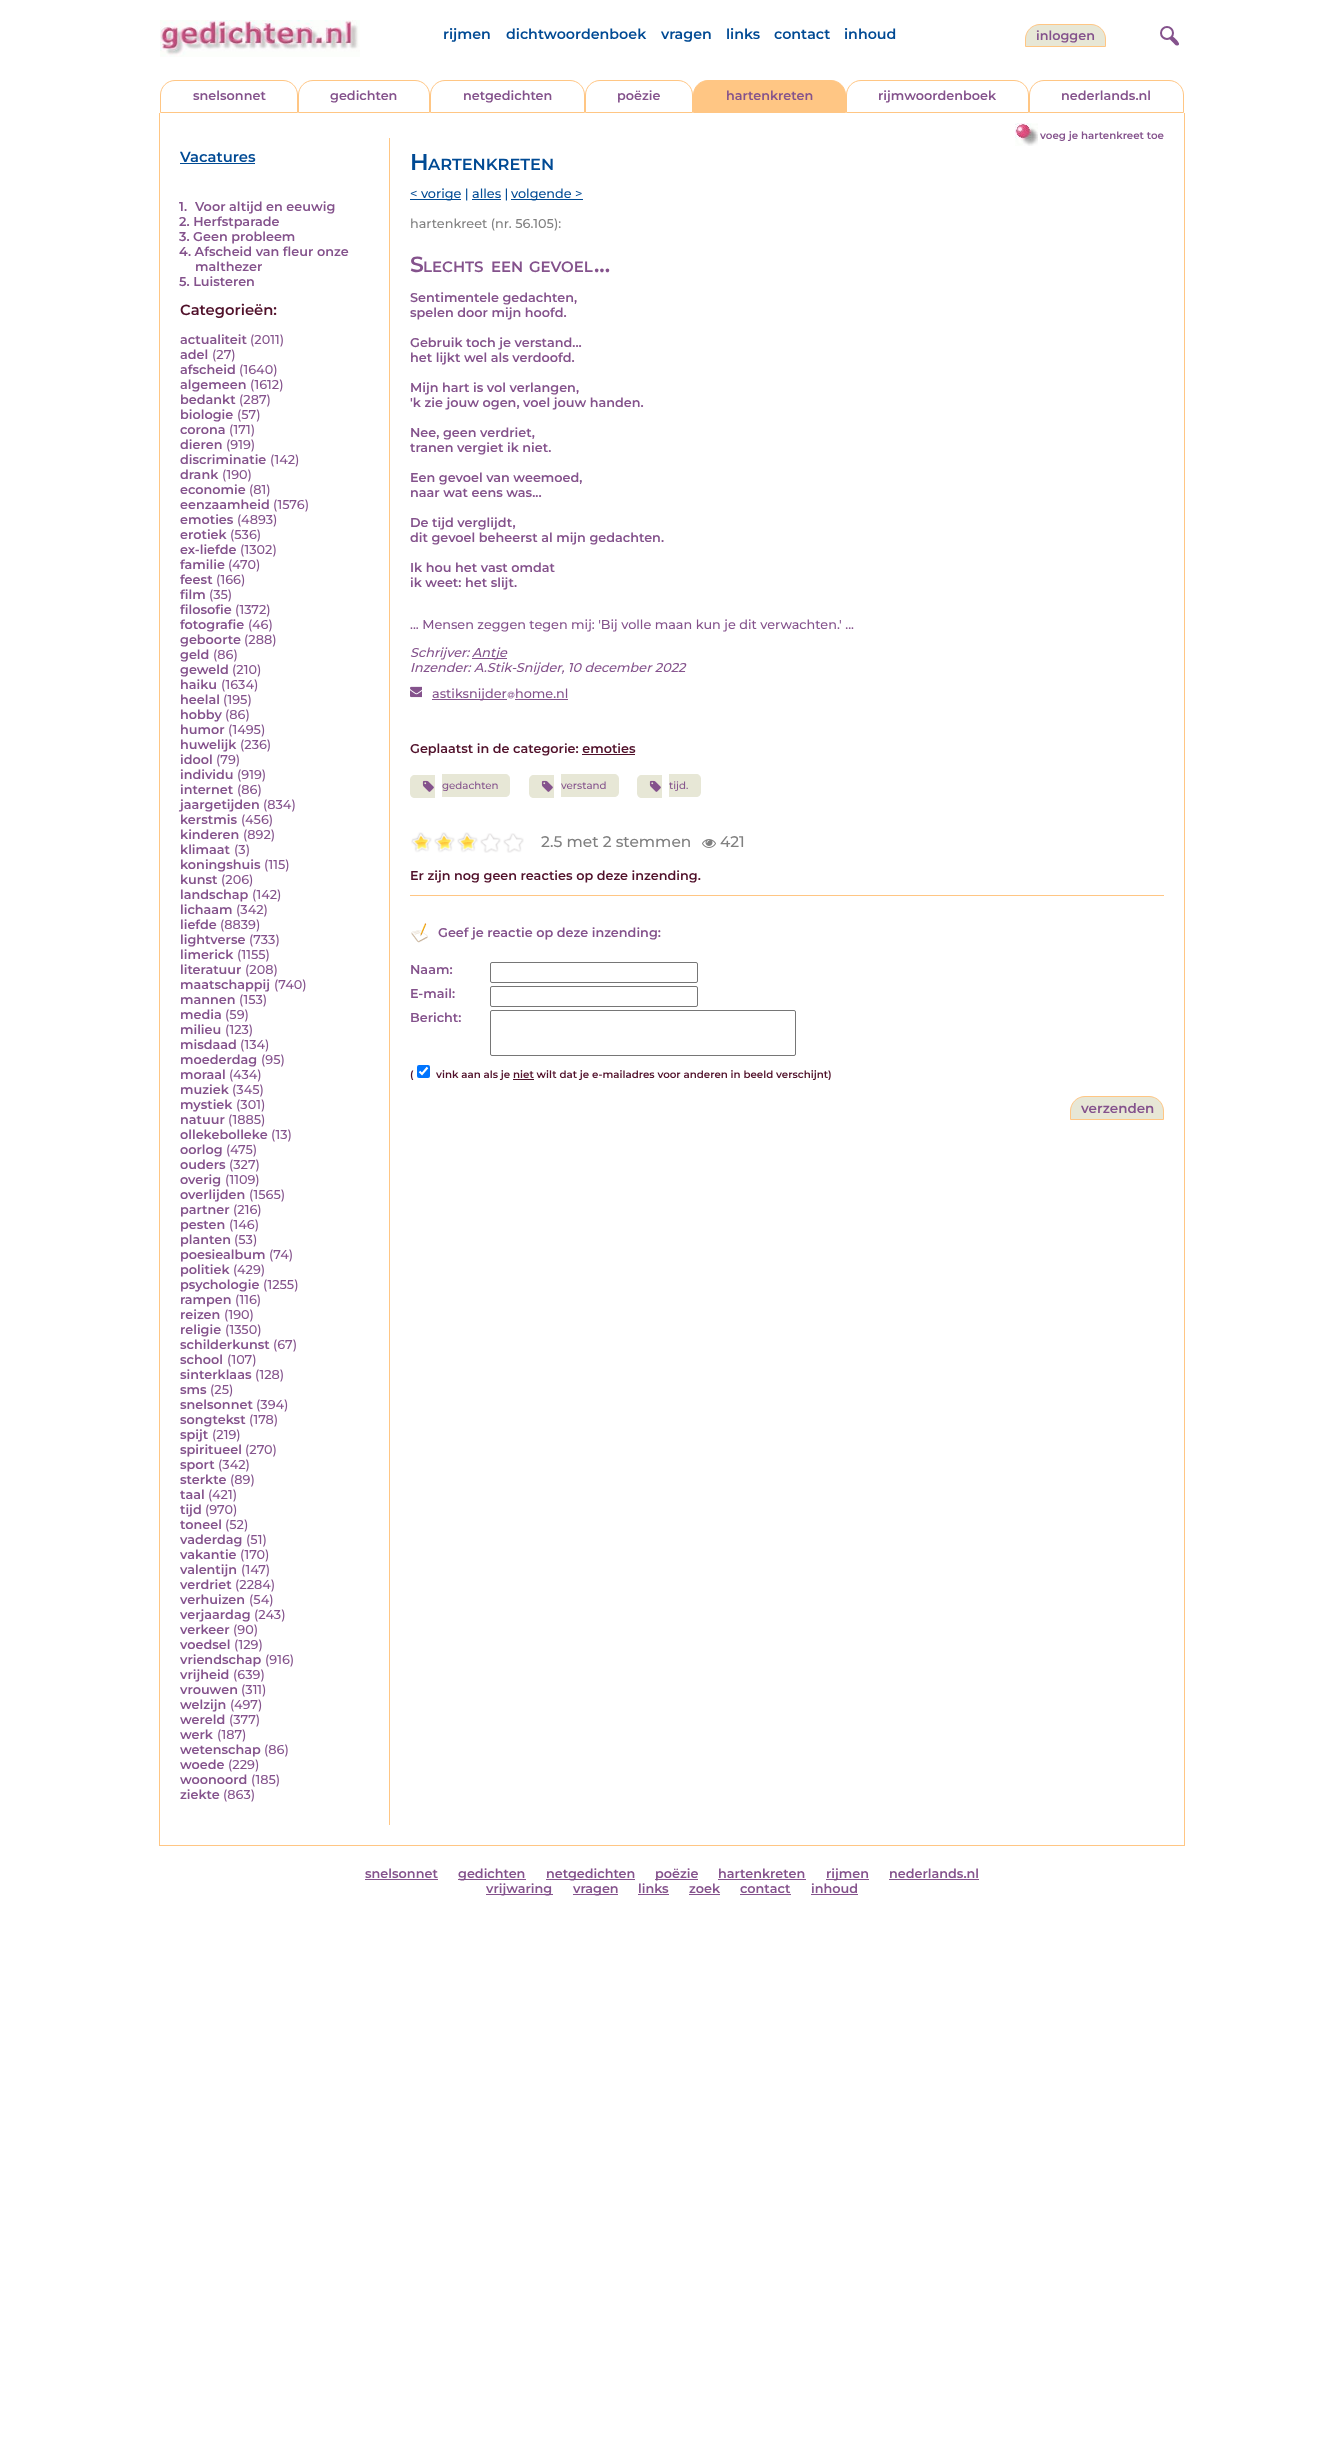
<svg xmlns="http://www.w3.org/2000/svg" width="1344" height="2453">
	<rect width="100%" height="100%" fill="#FFFFFF" />
	<image x="160" y="20" width="200" height="37" href="assets/img1.png" />
	<g font-family="Montserrat" font-size="14.25" font-weight="100" fill="#004A94">
		<text x="443" y="39">rijmen</text>
		<text x="506" y="39">dichtwoordenboek</text>
		<text x="661" y="39">vragen</text>
		<text x="726" y="39">links</text>
		<text x="774" y="39">contact</text>
		<text x="844" y="39">inhoud</text>
	</g>
	<path d="M1040 24.5H1091C1099 24.5 1105.5 31 1105.5 39V46.5H1025.5V39C1025.5 31 1032 24.5 1040 24.5Z" fill="#E7E7D6" stroke="#FFC684" />
	<text x="1036" y="40" font-family="Montserrat" font-size="12.8" font-weight="100" fill="#84528C">inloggen</text>
	<circle cx="1167" cy="33" r="6" fill="none" stroke="#84528C" stroke-width="2" />
	<path d="M1173.5 37C1174.5 38 1182.5 44.5 1177.5 45.5C1175.5 46 1174 43.5 1173 42.5L1170 39.5C1169.5 37.5 1172 35.5 1173.5 37Z" fill="#84528C" />
	<path d="M175 80.5H283C291 80.5 297.5 87 297.5 95V112.5H160.5V95C160.5 87 167 80.5 175 80.5Z" fill="none" stroke="#FFC684" />
	<text x="193" y="100" font-family="Montserrat" font-size="12.8" font-weight="100" fill="#84528C">snelsonnet</text>
	<path d="M313 80.5H415C423 80.5 429.5 87 429.5 95V112.5H298.5V95C298.5 87 305 80.5 313 80.5Z" fill="none" stroke="#FFC684" />
	<text x="330" y="100" font-family="Montserrat" font-size="12.8" font-weight="100" fill="#84528C">gedichten</text>
	<path d="M445 80.5H570C578 80.5 584.5 87 584.5 95V112.5H430.5V95C430.5 87 437 80.5 445 80.5Z" fill="none" stroke="#FFC684" />
	<text x="463" y="100" font-family="Montserrat" font-size="12.8" font-weight="100" fill="#84528C">netgedichten</text>
	<path d="M600 80.5H678C686 80.5 692.5 87 692.5 95V112.5H585.5V95C585.5 87 592 80.5 600 80.5Z" fill="none" stroke="#FFC684" />
	<text x="617" y="100" font-family="Montserrat" font-size="12.8" font-weight="100" fill="#84528C">poëzie</text>
	<path d="M708 80.5H831C839 80.5 845.5 87 845.5 95V112.5H693.5V95C693.5 87 700 80.5 708 80.5Z" fill="#FFC684" stroke="#FFC684" />
	<text x="726" y="100" font-family="Montserrat" font-size="12.8" font-weight="100" fill="#84528C">hartenkreten</text>
	<path d="M861 80.5H1014C1022 80.5 1028.5 87 1028.5 95V112.5H846.5V95C846.5 87 853 80.5 861 80.5Z" fill="none" stroke="#FFC684" />
	<text x="878" y="100" font-family="Montserrat" font-size="12.8" font-weight="100" fill="#84528C">rijmwoordenboek</text>
	<path d="M1044 80.5H1169C1177 80.5 1183.5 87 1183.5 95V112.5H1029.5V95C1029.5 87 1036 80.5 1044 80.5Z" fill="none" stroke="#FFC684" />
	<text x="1061" y="100" font-family="Montserrat" font-size="12.8" font-weight="100" fill="#84528C">nederlands.nl</text>
	<rect x="1184" y="113" width="1" height="1733" fill="#FFC684" />
	<rect x="159" y="1845" width="1026" height="1" fill="#FFC684" />
	<rect x="159" y="113" width="1" height="1733" fill="#FFC684" />
	<image x="1015" y="123" width="23" height="23" href="assets/img2.png" />
	<text x="1040" y="139" font-family="Montserrat" font-size="10.25" font-weight="100" fill="#84528C">voeg je hartenkreet toe</text>
	<rect x="389" y="138" width="1" height="1687" fill="#FFC684" />
	<text x="180" y="162" font-family="Montserrat" font-size="14.75" font-weight="100" fill="#004A94">Vacatures</text>
	<rect x="180" y="163" width="75" height="1" fill="#004A94" />
	<g font-family="Montserrat" font-size="12.8" font-weight="100" fill="#84528C">
		<text x="179" y="211">1.</text>
		<text x="195" y="211">Voor altijd en eeuwig</text>
		<text x="179" y="226">2. Herfstparade</text>
		<text x="179" y="241">3. Geen probleem</text>
		<text x="179" y="256">4. Afscheid van fleur onze</text>
		<text x="195" y="271">malthezer</text>
		<text x="179" y="286">5. Luisteren</text>
	</g>
	<text x="180" y="315" font-family="Montserrat" font-size="14.75" font-weight="100" fill="#50102A">Categorieën:</text>
	<text x="180" y="344" font-family="Montserrat" font-size="12.8" font-weight="100" fill="#84528C">actualiteit</text>
	<text x="250" y="344" font-family="'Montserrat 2'" font-size="12.8" font-weight="100" fill="#84528C">(2011)</text>
	<text x="180" y="359" font-family="Montserrat" font-size="12.8" font-weight="100" fill="#84528C">adel</text>
	<text x="212" y="359" font-family="'Montserrat 2'" font-size="12.8" font-weight="100" fill="#84528C">(27)</text>
	<text x="180" y="374" font-family="Montserrat" font-size="12.8" font-weight="100" fill="#84528C">afscheid</text>
	<text x="239" y="374" font-family="'Montserrat 2'" font-size="12.8" font-weight="100" fill="#84528C">(1640)</text>
	<text x="180" y="389" font-family="Montserrat" font-size="12.8" font-weight="100" fill="#84528C">algemeen</text>
	<text x="250" y="389" font-family="'Montserrat 2'" font-size="12.8" font-weight="100" fill="#84528C">(1612)</text>
	<text x="180" y="404" font-family="Montserrat" font-size="12.8" font-weight="100" fill="#84528C">bedankt</text>
	<text x="239" y="404" font-family="'Montserrat 2'" font-size="12.8" font-weight="100" fill="#84528C">(287)</text>
	<text x="180" y="419" font-family="Montserrat" font-size="12.8" font-weight="100" fill="#84528C">biologie</text>
	<text x="237" y="419" font-family="'Montserrat 2'" font-size="12.8" font-weight="100" fill="#84528C">(57)</text>
	<text x="180" y="434" font-family="Montserrat" font-size="12.8" font-weight="100" fill="#84528C">corona</text>
	<text x="229" y="434" font-family="'Montserrat 2'" font-size="12.8" font-weight="100" fill="#84528C">(171)</text>
	<text x="180" y="449" font-family="Montserrat" font-size="12.8" font-weight="100" fill="#84528C">dieren</text>
	<text x="226" y="449" font-family="'Montserrat 2'" font-size="12.8" font-weight="100" fill="#84528C">(919)</text>
	<text x="180" y="464" font-family="Montserrat" font-size="12.8" font-weight="100" fill="#84528C">discriminatie</text>
	<text x="270" y="464" font-family="'Montserrat 2'" font-size="12.8" font-weight="100" fill="#84528C">(142)</text>
	<text x="180" y="479" font-family="Montserrat" font-size="12.8" font-weight="100" fill="#84528C">drank</text>
	<text x="222" y="479" font-family="'Montserrat 2'" font-size="12.8" font-weight="100" fill="#84528C">(190)</text>
	<text x="180" y="494" font-family="Montserrat" font-size="12.8" font-weight="100" fill="#84528C">economie</text>
	<text x="249" y="494" font-family="'Montserrat 2'" font-size="12.8" font-weight="100" fill="#84528C">(81)</text>
	<text x="180" y="509" font-family="Montserrat" font-size="12.8" font-weight="100" fill="#84528C">eenzaamheid</text>
	<text x="273" y="509" font-family="'Montserrat 2'" font-size="12.8" font-weight="100" fill="#84528C">(1576)</text>
	<text x="180" y="524" font-family="Montserrat" font-size="12.8" font-weight="100" fill="#84528C">emoties</text>
	<text x="237" y="524" font-family="'Montserrat 2'" font-size="12.8" font-weight="100" fill="#84528C">(4893)</text>
	<text x="180" y="539" font-family="Montserrat" font-size="12.8" font-weight="100" fill="#84528C">erotiek</text>
	<text x="230" y="539" font-family="'Montserrat 2'" font-size="12.8" font-weight="100" fill="#84528C">(536)</text>
	<text x="180" y="554" font-family="Montserrat" font-size="12.8" font-weight="100" fill="#84528C">ex-liefde</text>
	<text x="240" y="554" font-family="'Montserrat 2'" font-size="12.8" font-weight="100" fill="#84528C">(1302)</text>
	<text x="180" y="569" font-family="Montserrat" font-size="12.8" font-weight="100" fill="#84528C">familie</text>
	<text x="228" y="569" font-family="'Montserrat 2'" font-size="12.8" font-weight="100" fill="#84528C">(470)</text>
	<text x="180" y="584" font-family="Montserrat" font-size="12.8" font-weight="100" fill="#84528C">feest</text>
	<text x="216" y="584" font-family="'Montserrat 2'" font-size="12.8" font-weight="100" fill="#84528C">(166)</text>
	<text x="180" y="599" font-family="Montserrat" font-size="12.8" font-weight="100" fill="#84528C">film</text>
	<text x="209" y="599" font-family="'Montserrat 2'" font-size="12.8" font-weight="100" fill="#84528C">(35)</text>
	<text x="180" y="614" font-family="Montserrat" font-size="12.8" font-weight="100" fill="#84528C">filosofie</text>
	<text x="235" y="614" font-family="'Montserrat 2'" font-size="12.8" font-weight="100" fill="#84528C">(1372)</text>
	<text x="180" y="629" font-family="Montserrat" font-size="12.8" font-weight="100" fill="#84528C">fotografie</text>
	<text x="248" y="629" font-family="'Montserrat 2'" font-size="12.8" font-weight="100" fill="#84528C">(46)</text>
	<text x="180" y="644" font-family="Montserrat" font-size="12.8" font-weight="100" fill="#84528C">geboorte</text>
	<text x="244" y="644" font-family="'Montserrat 2'" font-size="12.8" font-weight="100" fill="#84528C">(288)</text>
	<text x="180" y="659" font-family="Montserrat" font-size="12.8" font-weight="100" fill="#84528C">geld</text>
	<text x="213" y="659" font-family="'Montserrat 2'" font-size="12.8" font-weight="100" fill="#84528C">(86)</text>
	<text x="180" y="674" font-family="Montserrat" font-size="12.8" font-weight="100" fill="#84528C">geweld</text>
	<text x="232" y="674" font-family="'Montserrat 2'" font-size="12.8" font-weight="100" fill="#84528C">(210)</text>
	<text x="180" y="689" font-family="Montserrat" font-size="12.8" font-weight="100" fill="#84528C">haiku</text>
	<text x="221" y="689" font-family="'Montserrat 2'" font-size="12.8" font-weight="100" fill="#84528C">(1634)</text>
	<text x="180" y="704" font-family="Montserrat" font-size="12.8" font-weight="100" fill="#84528C">heelal</text>
	<text x="223" y="704" font-family="'Montserrat 2'" font-size="12.8" font-weight="100" fill="#84528C">(195)</text>
	<text x="180" y="719" font-family="Montserrat" font-size="12.8" font-weight="100" fill="#84528C">hobby</text>
	<text x="225" y="719" font-family="'Montserrat 2'" font-size="12.8" font-weight="100" fill="#84528C">(86)</text>
	<text x="180" y="734" font-family="Montserrat" font-size="12.8" font-weight="100" fill="#84528C">humor</text>
	<text x="228" y="734" font-family="'Montserrat 2'" font-size="12.8" font-weight="100" fill="#84528C">(1495)</text>
	<text x="180" y="749" font-family="Montserrat" font-size="12.8" font-weight="100" fill="#84528C">huwelijk</text>
	<text x="240" y="749" font-family="'Montserrat 2'" font-size="12.8" font-weight="100" fill="#84528C">(236)</text>
	<text x="180" y="764" font-family="Montserrat" font-size="12.8" font-weight="100" fill="#84528C">idool</text>
	<text x="216" y="764" font-family="'Montserrat 2'" font-size="12.8" font-weight="100" fill="#84528C">(79)</text>
	<text x="180" y="779" font-family="Montserrat" font-size="12.8" font-weight="100" fill="#84528C">individu</text>
	<text x="237" y="779" font-family="'Montserrat 2'" font-size="12.8" font-weight="100" fill="#84528C">(919)</text>
	<text x="180" y="794" font-family="Montserrat" font-size="12.8" font-weight="100" fill="#84528C">internet</text>
	<text x="237" y="794" font-family="'Montserrat 2'" font-size="12.8" font-weight="100" fill="#84528C">(86)</text>
	<text x="180" y="809" font-family="Montserrat" font-size="12.8" font-weight="100" fill="#84528C">jaargetijden</text>
	<text x="263" y="809" font-family="'Montserrat 2'" font-size="12.8" font-weight="100" fill="#84528C">(834)</text>
	<text x="180" y="824" font-family="Montserrat" font-size="12.8" font-weight="100" fill="#84528C">kerstmis</text>
	<text x="241" y="824" font-family="'Montserrat 2'" font-size="12.8" font-weight="100" fill="#84528C">(456)</text>
	<text x="180" y="839" font-family="Montserrat" font-size="12.8" font-weight="100" fill="#84528C">kinderen</text>
	<text x="243" y="839" font-family="'Montserrat 2'" font-size="12.8" font-weight="100" fill="#84528C">(892)</text>
	<text x="180" y="854" font-family="Montserrat" font-size="12.8" font-weight="100" fill="#84528C">klimaat</text>
	<text x="234" y="854" font-family="'Montserrat 2'" font-size="12.8" font-weight="100" fill="#84528C">(3)</text>
	<text x="180" y="869" font-family="Montserrat" font-size="12.8" font-weight="100" fill="#84528C">koningshuis</text>
	<text x="264" y="869" font-family="'Montserrat 2'" font-size="12.8" font-weight="100" fill="#84528C">(115)</text>
	<text x="180" y="884" font-family="Montserrat" font-size="12.8" font-weight="100" fill="#84528C">kunst</text>
	<text x="221" y="884" font-family="'Montserrat 2'" font-size="12.8" font-weight="100" fill="#84528C">(206)</text>
	<text x="180" y="899" font-family="Montserrat" font-size="12.8" font-weight="100" fill="#84528C">landschap</text>
	<text x="252" y="899" font-family="'Montserrat 2'" font-size="12.8" font-weight="100" fill="#84528C">(142)</text>
	<text x="180" y="914" font-family="Montserrat" font-size="12.8" font-weight="100" fill="#84528C">lichaam</text>
	<text x="236" y="914" font-family="'Montserrat 2'" font-size="12.8" font-weight="100" fill="#84528C">(342)</text>
	<text x="180" y="929" font-family="Montserrat" font-size="12.8" font-weight="100" fill="#84528C">liefde</text>
	<text x="220" y="929" font-family="'Montserrat 2'" font-size="12.8" font-weight="100" fill="#84528C">(8839)</text>
	<text x="180" y="944" font-family="Montserrat" font-size="12.8" font-weight="100" fill="#84528C">lightverse</text>
	<text x="249" y="944" font-family="'Montserrat 2'" font-size="12.8" font-weight="100" fill="#84528C">(733)</text>
	<text x="180" y="959" font-family="Montserrat" font-size="12.8" font-weight="100" fill="#84528C">limerick</text>
	<text x="237" y="959" font-family="'Montserrat 2'" font-size="12.8" font-weight="100" fill="#84528C">(1155)</text>
	<text x="180" y="974" font-family="Montserrat" font-size="12.8" font-weight="100" fill="#84528C">literatuur</text>
	<text x="245" y="974" font-family="'Montserrat 2'" font-size="12.8" font-weight="100" fill="#84528C">(208)</text>
	<text x="180" y="989" font-family="Montserrat" font-size="12.8" font-weight="100" fill="#84528C">maatschappij</text>
	<text x="274" y="989" font-family="'Montserrat 2'" font-size="12.8" font-weight="100" fill="#84528C">(740)</text>
	<text x="180" y="1004" font-family="Montserrat" font-size="12.8" font-weight="100" fill="#84528C">mannen</text>
	<text x="239" y="1004" font-family="'Montserrat 2'" font-size="12.8" font-weight="100" fill="#84528C">(153)</text>
	<text x="180" y="1019" font-family="Montserrat" font-size="12.8" font-weight="100" fill="#84528C">media</text>
	<text x="225" y="1019" font-family="'Montserrat 2'" font-size="12.8" font-weight="100" fill="#84528C">(59)</text>
	<text x="180" y="1034" font-family="Montserrat" font-size="12.8" font-weight="100" fill="#84528C">milieu</text>
	<text x="225" y="1034" font-family="'Montserrat 2'" font-size="12.8" font-weight="100" fill="#84528C">(123)</text>
	<text x="180" y="1049" font-family="Montserrat" font-size="12.8" font-weight="100" fill="#84528C">misdaad</text>
	<text x="240" y="1049" font-family="'Montserrat 2'" font-size="12.8" font-weight="100" fill="#84528C">(134)</text>
	<text x="180" y="1064" font-family="Montserrat" font-size="12.8" font-weight="100" fill="#84528C">moederdag</text>
	<text x="261" y="1064" font-family="'Montserrat 2'" font-size="12.8" font-weight="100" fill="#84528C">(95)</text>
	<text x="180" y="1079" font-family="Montserrat" font-size="12.8" font-weight="100" fill="#84528C">moraal</text>
	<text x="229" y="1079" font-family="'Montserrat 2'" font-size="12.8" font-weight="100" fill="#84528C">(434)</text>
	<text x="180" y="1094" font-family="Montserrat" font-size="12.8" font-weight="100" fill="#84528C">muziek</text>
	<text x="232" y="1094" font-family="'Montserrat 2'" font-size="12.8" font-weight="100" fill="#84528C">(345)</text>
	<text x="180" y="1109" font-family="Montserrat" font-size="12.8" font-weight="100" fill="#84528C">mystiek</text>
	<text x="236" y="1109" font-family="'Montserrat 2'" font-size="12.8" font-weight="100" fill="#84528C">(301)</text>
	<text x="180" y="1124" font-family="Montserrat" font-size="12.8" font-weight="100" fill="#84528C">natuur</text>
	<text x="228" y="1124" font-family="'Montserrat 2'" font-size="12.8" font-weight="100" fill="#84528C">(1885)</text>
	<text x="180" y="1139" font-family="Montserrat" font-size="12.8" font-weight="100" fill="#84528C">ollekebolleke</text>
	<text x="271" y="1139" font-family="'Montserrat 2'" font-size="12.8" font-weight="100" fill="#84528C">(13)</text>
	<text x="180" y="1154" font-family="Montserrat" font-size="12.8" font-weight="100" fill="#84528C">oorlog</text>
	<text x="226" y="1154" font-family="'Montserrat 2'" font-size="12.8" font-weight="100" fill="#84528C">(475)</text>
	<text x="180" y="1169" font-family="Montserrat" font-size="12.8" font-weight="100" fill="#84528C">ouders</text>
	<text x="229" y="1169" font-family="'Montserrat 2'" font-size="12.8" font-weight="100" fill="#84528C">(327)</text>
	<text x="180" y="1184" font-family="Montserrat" font-size="12.8" font-weight="100" fill="#84528C">overig</text>
	<text x="225" y="1184" font-family="'Montserrat 2'" font-size="12.8" font-weight="100" fill="#84528C">(1109)</text>
	<text x="180" y="1199" font-family="Montserrat" font-size="12.8" font-weight="100" fill="#84528C">overlijden</text>
	<text x="249" y="1199" font-family="'Montserrat 2'" font-size="12.8" font-weight="100" fill="#84528C">(1565)</text>
	<text x="180" y="1214" font-family="Montserrat" font-size="12.8" font-weight="100" fill="#84528C">partner</text>
	<text x="233" y="1214" font-family="'Montserrat 2'" font-size="12.8" font-weight="100" fill="#84528C">(216)</text>
	<text x="180" y="1229" font-family="Montserrat" font-size="12.8" font-weight="100" fill="#84528C">pesten</text>
	<text x="229" y="1229" font-family="'Montserrat 2'" font-size="12.8" font-weight="100" fill="#84528C">(146)</text>
	<text x="180" y="1244" font-family="Montserrat" font-size="12.8" font-weight="100" fill="#84528C">planten</text>
	<text x="234" y="1244" font-family="'Montserrat 2'" font-size="12.8" font-weight="100" fill="#84528C">(53)</text>
	<text x="180" y="1259" font-family="Montserrat" font-size="12.8" font-weight="100" fill="#84528C">poesiealbum</text>
	<text x="269" y="1259" font-family="'Montserrat 2'" font-size="12.8" font-weight="100" fill="#84528C">(74)</text>
	<text x="180" y="1274" font-family="Montserrat" font-size="12.8" font-weight="100" fill="#84528C">politiek</text>
	<text x="233" y="1274" font-family="'Montserrat 2'" font-size="12.8" font-weight="100" fill="#84528C">(429)</text>
	<text x="180" y="1289" font-family="Montserrat" font-size="12.8" font-weight="100" fill="#84528C">psychologie</text>
	<text x="263" y="1289" font-family="'Montserrat 2'" font-size="12.8" font-weight="100" fill="#84528C">(1255)</text>
	<text x="180" y="1304" font-family="Montserrat" font-size="12.8" font-weight="100" fill="#84528C">rampen</text>
	<text x="235" y="1304" font-family="'Montserrat 2'" font-size="12.8" font-weight="100" fill="#84528C">(116)</text>
	<text x="180" y="1319" font-family="Montserrat" font-size="12.8" font-weight="100" fill="#84528C">reizen</text>
	<text x="224" y="1319" font-family="'Montserrat 2'" font-size="12.8" font-weight="100" fill="#84528C">(190)</text>
	<text x="180" y="1334" font-family="Montserrat" font-size="12.8" font-weight="100" fill="#84528C">religie</text>
	<text x="225" y="1334" font-family="'Montserrat 2'" font-size="12.8" font-weight="100" fill="#84528C">(1350)</text>
	<text x="180" y="1349" font-family="Montserrat" font-size="12.8" font-weight="100" fill="#84528C">schilderkunst</text>
	<text x="273" y="1349" font-family="'Montserrat 2'" font-size="12.8" font-weight="100" fill="#84528C">(67)</text>
	<text x="180" y="1364" font-family="Montserrat" font-size="12.8" font-weight="100" fill="#84528C">school</text>
	<text x="227" y="1364" font-family="'Montserrat 2'" font-size="12.8" font-weight="100" fill="#84528C">(107)</text>
	<text x="180" y="1379" font-family="Montserrat" font-size="12.8" font-weight="100" fill="#84528C">sinterklaas</text>
	<text x="255" y="1379" font-family="'Montserrat 2'" font-size="12.8" font-weight="100" fill="#84528C">(128)</text>
	<text x="180" y="1394" font-family="Montserrat" font-size="12.8" font-weight="100" fill="#84528C">sms</text>
	<text x="210" y="1394" font-family="'Montserrat 2'" font-size="12.8" font-weight="100" fill="#84528C">(25)</text>
	<text x="180" y="1409" font-family="Montserrat" font-size="12.8" font-weight="100" fill="#84528C">snelsonnet</text>
	<text x="256" y="1409" font-family="'Montserrat 2'" font-size="12.8" font-weight="100" fill="#84528C">(394)</text>
	<text x="180" y="1424" font-family="Montserrat" font-size="12.8" font-weight="100" fill="#84528C">songtekst</text>
	<text x="249" y="1424" font-family="'Montserrat 2'" font-size="12.8" font-weight="100" fill="#84528C">(178)</text>
	<text x="180" y="1439" font-family="Montserrat" font-size="12.8" font-weight="100" fill="#84528C">spijt</text>
	<text x="212" y="1439" font-family="'Montserrat 2'" font-size="12.8" font-weight="100" fill="#84528C">(219)</text>
	<text x="180" y="1454" font-family="Montserrat" font-size="12.8" font-weight="100" fill="#84528C">spiritueel</text>
	<text x="245" y="1454" font-family="'Montserrat 2'" font-size="12.8" font-weight="100" fill="#84528C">(270)</text>
	<text x="180" y="1469" font-family="Montserrat" font-size="12.8" font-weight="100" fill="#84528C">sport</text>
	<text x="218" y="1469" font-family="'Montserrat 2'" font-size="12.8" font-weight="100" fill="#84528C">(342)</text>
	<text x="180" y="1484" font-family="Montserrat" font-size="12.8" font-weight="100" fill="#84528C">sterkte</text>
	<text x="230" y="1484" font-family="'Montserrat 2'" font-size="12.8" font-weight="100" fill="#84528C">(89)</text>
	<text x="180" y="1499" font-family="Montserrat" font-size="12.8" font-weight="100" fill="#84528C">taal</text>
	<text x="208" y="1499" font-family="'Montserrat 2'" font-size="12.8" font-weight="100" fill="#84528C">(421)</text>
	<text x="180" y="1514" font-family="Montserrat" font-size="12.8" font-weight="100" fill="#84528C">tijd</text>
	<text x="205" y="1514" font-family="'Montserrat 2'" font-size="12.8" font-weight="100" fill="#84528C">(970)</text>
	<text x="180" y="1529" font-family="Montserrat" font-size="12.8" font-weight="100" fill="#84528C">toneel</text>
	<text x="225" y="1529" font-family="'Montserrat 2'" font-size="12.8" font-weight="100" fill="#84528C">(52)</text>
	<text x="180" y="1544" font-family="Montserrat" font-size="12.8" font-weight="100" fill="#84528C">vaderdag</text>
	<text x="246" y="1544" font-family="'Montserrat 2'" font-size="12.8" font-weight="100" fill="#84528C">(51)</text>
	<text x="180" y="1559" font-family="Montserrat" font-size="12.8" font-weight="100" fill="#84528C">vakantie</text>
	<text x="240" y="1559" font-family="'Montserrat 2'" font-size="12.8" font-weight="100" fill="#84528C">(170)</text>
	<text x="180" y="1574" font-family="Montserrat" font-size="12.8" font-weight="100" fill="#84528C">valentijn</text>
	<text x="241" y="1574" font-family="'Montserrat 2'" font-size="12.8" font-weight="100" fill="#84528C">(147)</text>
	<text x="180" y="1589" font-family="Montserrat" font-size="12.8" font-weight="100" fill="#84528C">verdriet</text>
	<text x="235" y="1589" font-family="'Montserrat 2'" font-size="12.8" font-weight="100" fill="#84528C">(2284)</text>
	<text x="180" y="1604" font-family="Montserrat" font-size="12.8" font-weight="100" fill="#84528C">verhuizen</text>
	<text x="249" y="1604" font-family="'Montserrat 2'" font-size="12.8" font-weight="100" fill="#84528C">(54)</text>
	<text x="180" y="1619" font-family="Montserrat" font-size="12.8" font-weight="100" fill="#84528C">verjaardag</text>
	<text x="254" y="1619" font-family="'Montserrat 2'" font-size="12.8" font-weight="100" fill="#84528C">(243)</text>
	<text x="180" y="1634" font-family="Montserrat" font-size="12.8" font-weight="100" fill="#84528C">verkeer</text>
	<text x="233" y="1634" font-family="'Montserrat 2'" font-size="12.8" font-weight="100" fill="#84528C">(90)</text>
	<text x="180" y="1649" font-family="Montserrat" font-size="12.8" font-weight="100" fill="#84528C">voedsel</text>
	<text x="234" y="1649" font-family="'Montserrat 2'" font-size="12.8" font-weight="100" fill="#84528C">(129)</text>
	<text x="180" y="1664" font-family="Montserrat" font-size="12.8" font-weight="100" fill="#84528C">vriendschap</text>
	<text x="265" y="1664" font-family="'Montserrat 2'" font-size="12.8" font-weight="100" fill="#84528C">(916)</text>
	<text x="180" y="1679" font-family="Montserrat" font-size="12.8" font-weight="100" fill="#84528C">vrijheid</text>
	<text x="233" y="1679" font-family="'Montserrat 2'" font-size="12.8" font-weight="100" fill="#84528C">(639)</text>
	<text x="180" y="1694" font-family="Montserrat" font-size="12.8" font-weight="100" fill="#84528C">vrouwen</text>
	<text x="241" y="1694" font-family="'Montserrat 2'" font-size="12.8" font-weight="100" fill="#84528C">(311)</text>
	<text x="180" y="1709" font-family="Montserrat" font-size="12.8" font-weight="100" fill="#84528C">welzijn</text>
	<text x="230" y="1709" font-family="'Montserrat 2'" font-size="12.8" font-weight="100" fill="#84528C">(497)</text>
	<text x="180" y="1724" font-family="Montserrat" font-size="12.8" font-weight="100" fill="#84528C">wereld</text>
	<text x="229" y="1724" font-family="'Montserrat 2'" font-size="12.8" font-weight="100" fill="#84528C">(377)</text>
	<text x="180" y="1739" font-family="Montserrat" font-size="12.8" font-weight="100" fill="#84528C">werk</text>
	<text x="217" y="1739" font-family="'Montserrat 2'" font-size="12.8" font-weight="100" fill="#84528C">(187)</text>
	<text x="180" y="1754" font-family="Montserrat" font-size="12.8" font-weight="100" fill="#84528C">wetenschap</text>
	<text x="264" y="1754" font-family="'Montserrat 2'" font-size="12.8" font-weight="100" fill="#84528C">(86)</text>
	<text x="180" y="1769" font-family="Montserrat" font-size="12.8" font-weight="100" fill="#84528C">woede</text>
	<text x="228" y="1769" font-family="'Montserrat 2'" font-size="12.8" font-weight="100" fill="#84528C">(229)</text>
	<text x="180" y="1784" font-family="Montserrat" font-size="12.8" font-weight="100" fill="#84528C">woonoord</text>
	<text x="251" y="1784" font-family="'Montserrat 2'" font-size="12.8" font-weight="100" fill="#84528C">(185)</text>
	<text x="180" y="1799" font-family="Montserrat" font-size="12.8" font-weight="100" fill="#84528C">ziekte</text>
	<text x="223" y="1799" font-family="'Montserrat 2'" font-size="12.8" font-weight="100" fill="#84528C">(863)</text>
	<text x="410" y="170" font-family="Montserrat" font-size="23" font-weight="100" fill="#004A94">H</text>
	<text x="428" y="170" font-family="Montserrat" font-size="16.25" font-weight="100" fill="#004A94">ARTENKRETEN</text>
	<rect x="410" y="199" width="51" height="1" fill="#004A94" />
	<text x="410" y="198" font-family="'Montserrat 2'" font-size="12.8" font-weight="100" fill="#004A94">&lt; vorige | alles |</text>
	<rect x="511" y="199" width="72" height="1" fill="#004A94" />
	<text x="511" y="198" font-family="'Montserrat 2'" font-size="12.8" font-weight="100" fill="#004A94">volgende &gt;</text>
	<rect x="472" y="199" width="29" height="1" fill="#004A94" />
	<text x="410" y="228" font-family="'Montserrat 2'" font-size="12.8" font-weight="100" fill="#808080">hartenkreet (nr. 56.105):</text>
	<text x="410" y="272" font-family="Montserrat" font-size="22" font-weight="100" fill="#84528C">S</text>
	<g font-family="Montserrat" font-size="15" font-weight="100" fill="#84528C">
		<text x="423" y="272">LECHTS</text>
		<text x="491" y="272">EEN</text>
		<text x="529" y="272">GEVOEL</text>
	</g>
	<text x="594" y="272" font-family="Montserrat" font-size="22" font-weight="100" fill="#84528C">...</text>
	<g font-family="Montserrat" font-size="12.8" font-weight="100" fill="#84528C">
		<text x="410" y="302">Sentimentele gedachten,</text>
		<text x="410" y="317">spelen door mijn hoofd.</text>
		<text x="410" y="347">Gebruik toch je verstand...</text>
		<text x="410" y="362">het lijkt wel als verdoofd.</text>
		<text x="410" y="392">Mijn hart is vol verlangen,</text>
		<text x="410" y="407">'k zie jouw ogen, voel jouw handen.</text>
		<text x="410" y="437">Nee, geen verdriet,</text>
		<text x="410" y="452">tranen vergiet ik niet.</text>
		<text x="410" y="482">Een gevoel van weemoed,</text>
		<text x="410" y="497">naar wat eens was...</text>
		<text x="410" y="527">De tijd verglijdt,</text>
		<text x="410" y="542">dit gevoel beheerst al mijn gedachten.</text>
		<text x="410" y="572">Ik hou het vast omdat</text>
		<text x="410" y="587">ik weet: het slijt.</text>
	</g>
	<text x="410" y="629" font-family="'Montserrat 2'" font-size="12.8" font-weight="100" fill="#84528C">... Mensen zeggen tegen mij: 'Bij volle maan kun je dit verwachten.' ...</text>
	<text x="410" y="657" font-family="Montserrat" font-size="12.8" font-weight="100" font-style="italic" fill="#84528C">Schrijver:</text>
	<rect x="472" y="658" width="35" height="1" fill="#84528C" />
	<g font-family="Montserrat" font-size="12.8" font-weight="100" font-style="italic" fill="#84528C">
		<text x="472" y="657">Antje</text>
		<text x="410" y="672">Inzender: A.Stik-Snijder, 10 december 2022</text>
	</g>
	<image x="410" y="686" width="12" height="12" href="assets/img3.png" />
	<rect x="432" y="699" width="75" height="1" fill="#84528C" />
	<text x="432" y="698" font-family="'Montserrat 2'" font-size="12.8" font-weight="100" fill="#84528C">astiksnijder</text>
	<image x="507" y="691" width="8" height="8" href="assets/img4.png" />
	<text x="515" y="698" font-family="'Montserrat 2'" font-size="12.8" font-weight="100" fill="#84528C">home.nl</text>
	<rect x="515" y="699" width="53" height="1" fill="#84528C" />
	<text x="410" y="753" font-family="Montserrat" font-size="12.8" font-weight="100" fill="#50102A">Geplaatst in de categorie: emoties</text>
	<rect x="582" y="754" width="53" height="1" fill="#50102A" />
	<path d="M415 775H435V798H415C412 798 410 796 410 793V780C410 777 412 775 415 775Z" fill="#E7E7D6" />
	<image x="422" y="780" width="12" height="12" href="assets/img5.png" />
	<path d="M442 774H505C508 774 510 776 510 779V792C510 795 508 797 505 797H442Z" fill="#E7E7D6" />
	<text x="442" y="789" font-family="'Montserrat 2'" font-size="10.25" font-weight="100" fill="#84528C">gedachten</text>
	<path d="M534 775H554V798H534C531 798 529 796 529 793V780C529 777 531 775 534 775Z" fill="#E7E7D6" />
	<image x="541" y="780" width="12" height="12" href="assets/img5.png" />
	<path d="M561 774H614C617 774 619 776 619 779V792C619 795 617 797 614 797H561Z" fill="#E7E7D6" />
	<text x="561" y="789" font-family="'Montserrat 2'" font-size="10.25" font-weight="100" fill="#84528C">verstand</text>
	<path d="M642 775H662V798H642C639 798 637 796 637 793V780C637 777 639 775 642 775Z" fill="#E7E7D6" />
	<image x="649" y="780" width="12" height="12" href="assets/img5.png" />
	<path d="M669 774H696C699 774 701 776 701 779V792C701 795 699 797 696 797H669Z" fill="#E7E7D6" />
	<text x="669" y="789" font-family="'Montserrat 2'" font-size="10.25" font-weight="100" fill="#84528C">tijd.</text>
	<image x="411" y="833" width="113" height="20" href="assets/img6.png" />
	<image x="412" y="832" width="65" height="21" href="assets/img7.png" />
	<text x="541" y="847" font-family="'Montserrat 2'" font-size="15.4" font-weight="100" fill="#808080">2.5 met 2 stemmen</text>
	<image x="702" y="839" width="14" height="9" href="assets/img8.png" />
	<text x="720" y="847" font-family="'Montserrat 2'" font-size="15.4" font-weight="100" fill="#808080">421</text>
	<text x="410" y="880" font-family="Montserrat" font-size="12.8" font-weight="100" fill="#50102A">Er zijn nog geen reacties op deze inzending.</text>
	<rect x="410" y="895" width="754" height="1" fill="#FFC684" />
	<image x="411" y="923" width="17" height="20" href="assets/img9.png" />
	<g font-family="Montserrat" font-size="12.8" font-weight="100" fill="#84528C">
		<text x="438" y="937">Geef je reactie op deze inzending:</text>
		<text x="410" y="974">Naam:</text>
	</g>
	<rect x="490.5" y="962.5" width="207" height="20" rx="1.5" fill="none" stroke="#767676" />
	<text x="410" y="998" font-family="Montserrat" font-size="12.8" font-weight="100" fill="#84528C">E-mail:</text>
	<rect x="490.5" y="986.5" width="207" height="20" rx="1.5" fill="none" stroke="#767676" />
	<text x="410" y="1022" font-family="Montserrat" font-size="12.8" font-weight="100" fill="#84528C">Bericht:</text>
	<rect x="490.5" y="1010.5" width="305" height="45" rx="1.5" fill="none" stroke="#767676" />
	<text x="410" y="1078" font-family="Montserrat" font-size="10.25" font-weight="100" fill="#50102A">(</text>
	<rect x="417" y="1065" width="13" height="13" rx="2" fill="#0075FF" />
	<path d="M419.5 1071.5L422 1074L427.5 1067.5" fill="none" stroke="#FFFFFF" stroke-width="2.1" />
	<text x="436" y="1078" font-family="Montserrat" font-size="10.25" font-weight="100" fill="#50102A">vink aan als je niet wilt dat je e-mailadres voor anderen in beeld verschijnt)</text>
	<rect x="513" y="1079" width="21" height="1" fill="#50102A" />
	<path d="M1085 1096.5H1149C1157 1096.5 1163.5 1103 1163.5 1111V1119.5H1070.5V1111C1070.5 1103 1077 1096.5 1085 1096.5Z" fill="#E7E7D6" stroke="#FFC684" />
	<text x="1081" y="1113" font-family="Montserrat" font-size="13.5" font-weight="100" fill="#84528C">verzenden</text>
	<text x="365" y="1878" font-family="Montserrat" font-size="12.8" font-weight="100" fill="#84528C">snelsonnet</text>
	<rect x="365" y="1879" width="73" height="1" fill="#84528C" />
	<rect x="458" y="1879" width="68" height="1" fill="#84528C" />
	<text x="458" y="1878" font-family="Montserrat" font-size="12.8" font-weight="100" fill="#84528C">gedichten</text>
	<rect x="546" y="1879" width="89" height="1" fill="#84528C" />
	<text x="546" y="1878" font-family="Montserrat" font-size="12.8" font-weight="100" fill="#84528C">netgedichten</text>
	<rect x="655" y="1879" width="43" height="1" fill="#84528C" />
	<g font-family="Montserrat" font-size="12.8" font-weight="100" fill="#84528C">
		<text x="655" y="1878">poëzie</text>
		<text x="718" y="1878">hartenkreten</text>
	</g>
	<rect x="718" y="1879" width="88" height="1" fill="#84528C" />
	<rect x="826" y="1879" width="43" height="1" fill="#84528C" />
	<g font-family="Montserrat" font-size="12.8" font-weight="100" fill="#84528C">
		<text x="826" y="1878">rijmen</text>
		<text x="889" y="1878">nederlands.nl</text>
	</g>
	<rect x="889" y="1879" width="90" height="1" fill="#84528C" />
	<rect x="486" y="1894" width="67" height="1" fill="#84528C" />
	<text x="486" y="1893" font-family="Montserrat" font-size="12.8" font-weight="100" fill="#84528C">vrijwaring</text>
	<rect x="573" y="1894" width="45" height="1" fill="#84528C" />
	<g font-family="Montserrat" font-size="12.8" font-weight="100" fill="#84528C">
		<text x="573" y="1893">vragen</text>
		<text x="638" y="1893">links</text>
	</g>
	<rect x="638" y="1894" width="31" height="1" fill="#84528C" />
	<text x="689" y="1893" font-family="Montserrat" font-size="12.8" font-weight="100" fill="#84528C">zoek</text>
	<rect x="689" y="1894" width="31" height="1" fill="#84528C" />
	<text x="740" y="1893" font-family="Montserrat" font-size="12.8" font-weight="100" fill="#84528C">contact</text>
	<rect x="740" y="1894" width="51" height="1" fill="#84528C" />
	<text x="811" y="1893" font-family="Montserrat" font-size="12.8" font-weight="100" fill="#84528C">inhoud</text>
	<rect x="811" y="1894" width="47" height="1" fill="#84528C" />
</svg>
